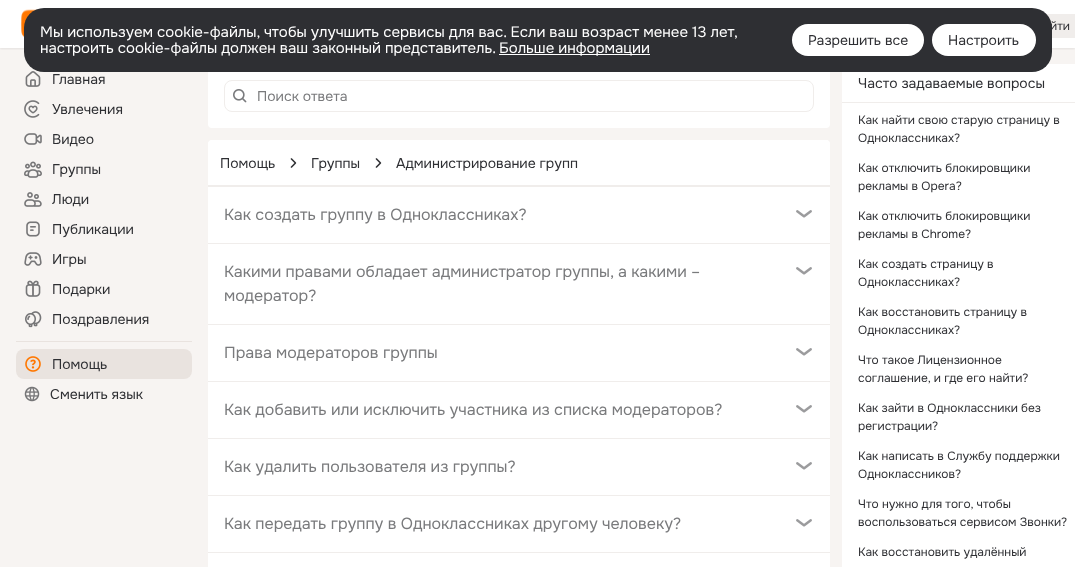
<svg xmlns="http://www.w3.org/2000/svg" width="1075" height="567">
	<defs>
		<clipPath id="clip1"><rect x="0" y="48" width="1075" height="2" /></clipPath>
	</defs>
	<rect width="100%" height="100%" fill="#F7F4F2" />
	<rect x="0" y="0" width="1075" height="48" fill="#FFFFFF" />
	<g clip-path="url(#clip1)">
		<rect x="0" y="1" width="1075" height="48" fill="#000000" fill-opacity="0.08" filter="blur(1px)" />
	</g>
	<image x="21" y="9" width="17" height="28" href="assets/img1.png" />
	<rect x="1046" y="14" width="29" height="24" fill="#F0EDEB" />
	<image x="25" y="71" width="16" height="16" href="assets/img2.png" />
	<rect x="208" y="64" width="622" height="64" rx="4" fill="#FFFFFF" />
	<rect x="842" y="64" width="233" height="38" fill="#FFFFFF" />
	<rect x="24" y="8" width="1028" height="64" rx="20" fill="#2E2F33" />
	<g font-family="Onest" font-size="15" fill="#FFFFFF">
		<text x="40" y="37">Мы используем cookie-файлы, чтобы улучшить сервисы для вас. Если ваш возраст менее 13 лет,</text>
		<text x="40" y="53">настроить cookie-файлы должен ваш законный представитель.</text>
	</g>
	<rect x="499" y="54" width="151" height="1" fill="#FFFFFF" />
	<text x="499" y="53" font-family="Onest" font-size="15" fill="#FFFFFF">Больше информации</text>
	<rect x="792" y="24" width="132" height="32" rx="16" fill="#FFFFFF" />
	<text x="808" y="45" font-family="Onest" font-size="14" fill="#2E2F33">Разрешить все</text>
	<rect x="932" y="24" width="104" height="32" rx="16" fill="#FFFFFF" />
	<text x="948" y="45" font-family="Onest" font-size="14" fill="#2E2F33">Настроить</text>
	<text x="1050" y="30" font-family="Onest" font-size="12" fill="#2E2F33">йти</text>
	<text x="52" y="84" font-family="Onest" font-size="14" fill="#2E2F33">Главная</text>
	<image x="24" y="100" width="16" height="18" href="assets/img3.png" />
	<text x="52" y="114" font-family="Onest" font-size="14" fill="#2E2F33">Увлечения</text>
	<image x="24" y="133" width="18" height="12" href="assets/img4.png" />
	<text x="52" y="144" font-family="Onest" font-size="14" fill="#2E2F33">Видео</text>
	<image x="24" y="161" width="18" height="17" href="assets/img5.png" />
	<text x="52" y="174" font-family="Onest" font-size="14" fill="#2E2F33">Группы</text>
	<image x="24" y="192" width="18" height="15" href="assets/img6.png" />
	<text x="52" y="204" font-family="Onest" font-size="14" fill="#2E2F33">Люди</text>
	<image x="26" y="221" width="14" height="16" href="assets/img7.png" />
	<text x="52" y="234" font-family="Onest" font-size="14" fill="#2E2F33">Публикации</text>
	<image x="24" y="252" width="18" height="14" href="assets/img8.png" />
	<text x="52" y="264" font-family="Onest" font-size="14" fill="#2E2F33">Игры</text>
	<image x="25" y="280" width="16" height="17" href="assets/img9.png" />
	<text x="52" y="294" font-family="Onest" font-size="14" fill="#2E2F33">Подарки</text>
	<image x="25" y="311" width="17" height="17" href="assets/img10.png" />
	<text x="52" y="324" font-family="Onest" font-size="14" fill="#2E2F33">Поздравления</text>
	<rect x="16" y="341" width="176" height="1" fill="#E9E3DF" />
	<rect x="16" y="349" width="176" height="30" rx="8" fill="#E9E3DF" />
	<image x="25" y="356" width="16" height="16" href="assets/img11.png" />
	<text x="52" y="369" font-family="Onest" font-size="14" fill="#2E2F33">Помощь</text>
	<image x="24" y="386" width="16" height="16" href="assets/img12.png" />
	<text x="50" y="399" font-family="Onest" font-size="14" fill="#2E2F33">Сменить язык</text>
	<rect x="224.5" y="80.5" width="589" height="31" rx="7.5" fill="none" stroke="#F0EDEB" />
	<image x="233" y="89" width="14" height="14" href="assets/img13.png" />
	<text x="257" y="101" font-family="Onest" font-size="14" fill="#797A7C">Поиск ответа</text>
	<rect x="208" y="140" width="622" height="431" rx="4" fill="#FFFFFF" />
	<path d="M212 140H826C828 140 830 142 830 144V187H208V144C208 142 210 140 212 140Z" fill="#FFFFFF" />
	<rect x="208" y="185" width="622" height="2" fill="#F0EDEB" />
	<text x="220" y="168" font-family="Onest" font-size="14" fill="#2E2F33">Помощь</text>
	<image x="290" y="158" width="7" height="10" href="assets/img14.png" />
	<text x="311" y="168" font-family="Onest" font-size="14" fill="#2E2F33">Группы</text>
	<image x="375" y="158" width="7" height="10" href="assets/img14.png" />
	<text x="396" y="168" font-family="Onest" font-size="14" fill="#2E2F33">Администрирование групп</text>
	<rect x="208" y="243" width="622" height="1" fill="#F0EDEB" />
	<text x="224" y="220" font-family="Onest" font-size="16" fill="#797A7C">Как создать группу в Одноклассниках?</text>
	<image x="796" y="210" width="16" height="8" href="assets/img15.png" />
	<rect x="208" y="324" width="622" height="1" fill="#F0EDEB" />
	<g font-family="Onest" font-size="16" fill="#797A7C">
		<text x="224" y="277">Какими правами обладает администратор группы, а какими –</text>
		<text x="224" y="301">модератор?</text>
	</g>
	<image x="796" y="267" width="16" height="8" href="assets/img15.png" />
	<rect x="208" y="381" width="622" height="1" fill="#F0EDEB" />
	<text x="224" y="358" font-family="Onest" font-size="16" fill="#797A7C">Права модераторов группы</text>
	<image x="796" y="348" width="16" height="8" href="assets/img15.png" />
	<rect x="208" y="438" width="622" height="1" fill="#F0EDEB" />
	<text x="224" y="415" font-family="Onest" font-size="16" fill="#797A7C">Как добавить или исключить участника из списка модераторов?</text>
	<image x="796" y="405" width="16" height="8" href="assets/img15.png" />
	<rect x="208" y="495" width="622" height="1" fill="#F0EDEB" />
	<text x="224" y="472" font-family="Onest" font-size="16" fill="#797A7C">Как удалить пользователя из группы?</text>
	<image x="796" y="462" width="16" height="8" href="assets/img15.png" />
	<rect x="208" y="552" width="622" height="1" fill="#F0EDEB" />
	<text x="224" y="529" font-family="Onest" font-size="16" fill="#797A7C">Как передать группу в Одноклассниках другому человеку?</text>
	<image x="796" y="519" width="16" height="8" href="assets/img15.png" />
	<rect x="842" y="103" width="233" height="464" fill="#FFFFFF" />
	<rect x="842" y="102" width="233" height="1" fill="#F0EDEB" />
	<text x="858" y="88" font-family="Onest" font-size="14" fill="#2E2F33">Часто задаваемые вопросы</text>
	<g font-family="Onest" font-size="12" fill="#2E2F33">
		<text x="858" y="124">Как найти свою старую страницу в</text>
		<text x="858" y="142">Одноклассниках?</text>
		<text x="858" y="172">Как отключить блокировщики</text>
		<text x="858" y="190">рекламы в Opera?</text>
		<text x="858" y="220">Как отключить блокировщики</text>
		<text x="858" y="238">рекламы в Chrome?</text>
		<text x="858" y="268">Как создать страницу в</text>
		<text x="858" y="286">Одноклассниках?</text>
		<text x="858" y="316">Как восстановить страницу в</text>
		<text x="858" y="334">Одноклассниках?</text>
		<text x="858" y="364">Что такое Лицензионное</text>
		<text x="858" y="382">соглашение, и где его найти?</text>
		<text x="858" y="412">Как зайти в Одноклассники без</text>
		<text x="858" y="430">регистрации?</text>
		<text x="858" y="460">Как написать в Службу поддержки</text>
		<text x="858" y="478">Одноклассников?</text>
		<text x="858" y="508">Что нужно для того, чтобы</text>
		<text x="858" y="526">воспользоваться сервисом Звонки?</text>
		<text x="858" y="556">Как восстановить удалённый</text>
	</g>
</svg>
